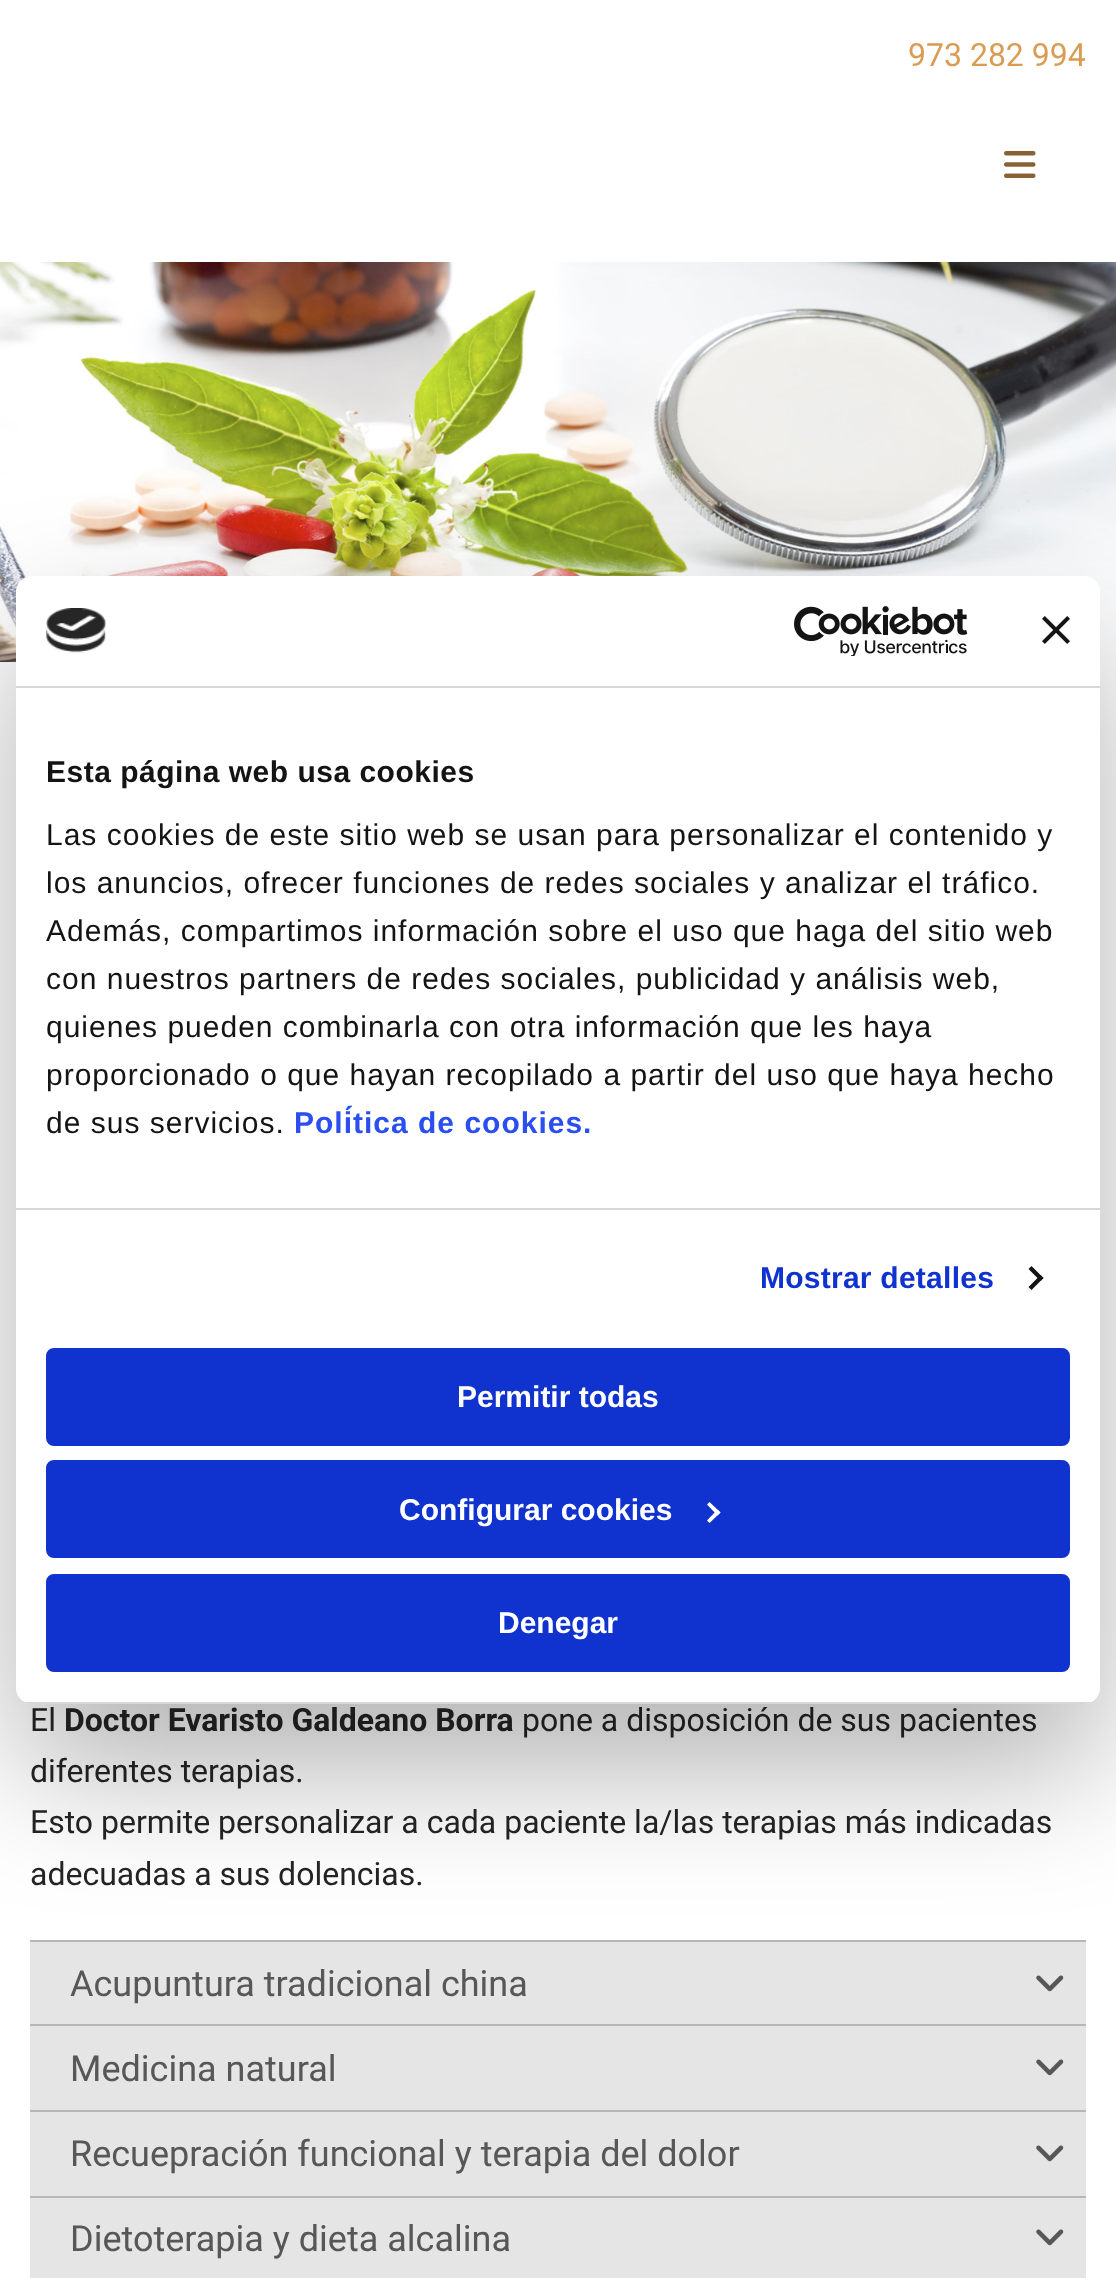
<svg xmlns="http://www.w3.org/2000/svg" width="1116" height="2278">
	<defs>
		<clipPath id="clip1"><rect x="16" y="576" width="1084" height="1128" rx="16" /></clipPath>
	</defs>
	<rect width="100%" height="100%" fill="#FFFFFF" />
	<text x="908" y="66" font-family="Roboto" font-size="32" fill="#DA9B53">973 282 994</text>
	<image x="1004" y="151" width="32" height="27" href="assets/img1.png" />
	<image x="0" y="262" width="1116" height="400" href="assets/img2.png" />
	<text x="30" y="1731" font-family="Roboto" font-size="32" fill="#252525">El</text>
	<text x="64" y="1731" font-family="Roboto" font-size="32" font-weight="700" fill="#252525">Doctor Evaristo Galdeano Borra</text>
	<g font-family="Roboto" font-size="32" fill="#252525">
		<text x="522" y="1731">pone a disposición de sus pacientes</text>
		<text x="30" y="1782">diferentes terapias.</text>
		<text x="30" y="1833">Esto permite personalizar a cada paciente la/las terapias más indicadas</text>
		<text x="30" y="1885">adecuadas a sus dolencias.</text>
	</g>
	<rect x="30" y="1942" width="1056" height="82" fill="#E6E5E5" />
	<rect x="30" y="1940" width="1056" height="2" fill="#B6B6B6" />
	<text x="70" y="1996" font-family="Roboto" font-size="36" fill="#575757">Acupuntura tradicional china</text>
	<image x="1036" y="1975" width="28" height="17" href="assets/img3.png" />
	<rect x="30" y="2026" width="1056" height="84" fill="#E6E5E5" />
	<rect x="30" y="2024" width="1056" height="2" fill="#B6B6B6" />
	<text x="70" y="2081" font-family="Roboto" font-size="36" fill="#575757">Medicina natural</text>
	<image x="1036" y="2059" width="28" height="17" href="assets/img3.png" />
	<rect x="30" y="2112" width="1056" height="84" fill="#E6E5E5" />
	<rect x="30" y="2110" width="1056" height="2" fill="#B6B6B6" />
	<text x="70" y="2166" font-family="Roboto" font-size="36" fill="#575757">Recuepración funcional y terapia del dolor</text>
	<image x="1036" y="2145" width="28" height="17" href="assets/img3.png" />
	<rect x="30" y="2198" width="1056" height="80" fill="#E6E5E5" />
	<rect x="30" y="2196" width="1056" height="2" fill="#B6B6B6" />
	<text x="70" y="2251" font-family="Roboto" font-size="36" fill="#575757">Dietoterapia y dieta alcalina</text>
	<image x="1036" y="2229" width="28" height="17" href="assets/img3.png" />
	<rect x="16" y="640" width="1084" height="1128" rx="16" fill="#000000" fill-opacity="0.3" filter="blur(68px)" />
	<rect x="16" y="576" width="1084" height="1128" rx="16" fill="#FFFFFF" />
	<rect x="16" y="686" width="1084" height="2" fill="#D6D6D6" />
	<image x="46" y="608" width="60" height="45" href="assets/img4.png" />
	<image x="794" y="606" width="174" height="50" href="assets/img5.png" />
	<image x="1042" y="616" width="28" height="28" href="assets/img6.png" />
	<rect x="16" y="1208" width="1084" height="2" fill="#D6D6D6" />
	<text x="46" y="782" font-family="Liberation Sans" font-size="30" font-weight="700" letter-spacing="0.5" fill="#141414">Esta página web usa cookies</text>
	<g font-family="Liberation Sans" font-size="30" letter-spacing="1" fill="#141414">
		<text x="46" y="845">Las cookies de este sitio web se usan para personalizar el contenido y</text>
		<text x="46" y="893">los anuncios, ofrecer funciones de redes sociales y analizar el tráfico.</text>
		<text x="46" y="941">Además, compartimos información sobre el uso que haga del sitio web</text>
		<text x="46" y="989">con nuestros partners de redes sociales, publicidad y análisis web,</text>
		<text x="46" y="1037">quienes pueden combinarla con otra información que les haya</text>
		<text x="46" y="1085">proporcionado o que hayan recopilado a partir del uso que haya hecho</text>
		<text x="46" y="1133">de sus servicios.</text>
	</g>
	<text x="294" y="1133" font-family="Liberation Sans" font-size="30" font-weight="700" letter-spacing="1" fill="#2A4EEF">Política de cookies.</text>
	<text x="760" y="1288" font-family="Liberation Sans" font-size="30" font-weight="700" letter-spacing="0.25" fill="#1032CF">Mostrar detalles</text>
	<path d="M1031.5 1266L1043.5 1278L1040.5 1281L1028.5 1269Z" fill="#141414" />
	<path d="M1040.5 1275L1043.5 1278L1031.5 1290L1028.5 1287Z" fill="#141414" />
	<g clip-path="url(#clip1)">
		<rect x="16" y="1702" width="1084" height="2" fill="#D6D6D6" />
	</g>
	<rect x="48" y="1350" width="1020" height="94" rx="6" fill="#1032CF" stroke="#1032CF" stroke-width="4" />
	<text x="457" y="1407" font-family="Liberation Sans" font-size="30" font-weight="700" fill="#FFFFFF">Permitir todas</text>
	<rect x="48" y="1462" width="1020" height="94" rx="6" fill="#1032CF" stroke="#1032CF" stroke-width="4" />
	<text x="399" y="1520" font-family="Liberation Sans" font-size="30" font-weight="700" fill="#FFFFFF">Configurar cookies</text>
	<path d="M709.5 1502L720.5 1512.5L717.5 1515.5L707 1504.5Z" fill="#FFFFFF" />
	<path d="M717.5 1509.5L720.5 1512.5L709.5 1523L707 1520.5Z" fill="#FFFFFF" />
	<rect x="48" y="1576" width="1020" height="94" rx="6" fill="#1032CF" stroke="#1032CF" stroke-width="4" />
	<text x="498" y="1633" font-family="Liberation Sans" font-size="30" font-weight="700" fill="#FFFFFF">Denegar</text>
</svg>
